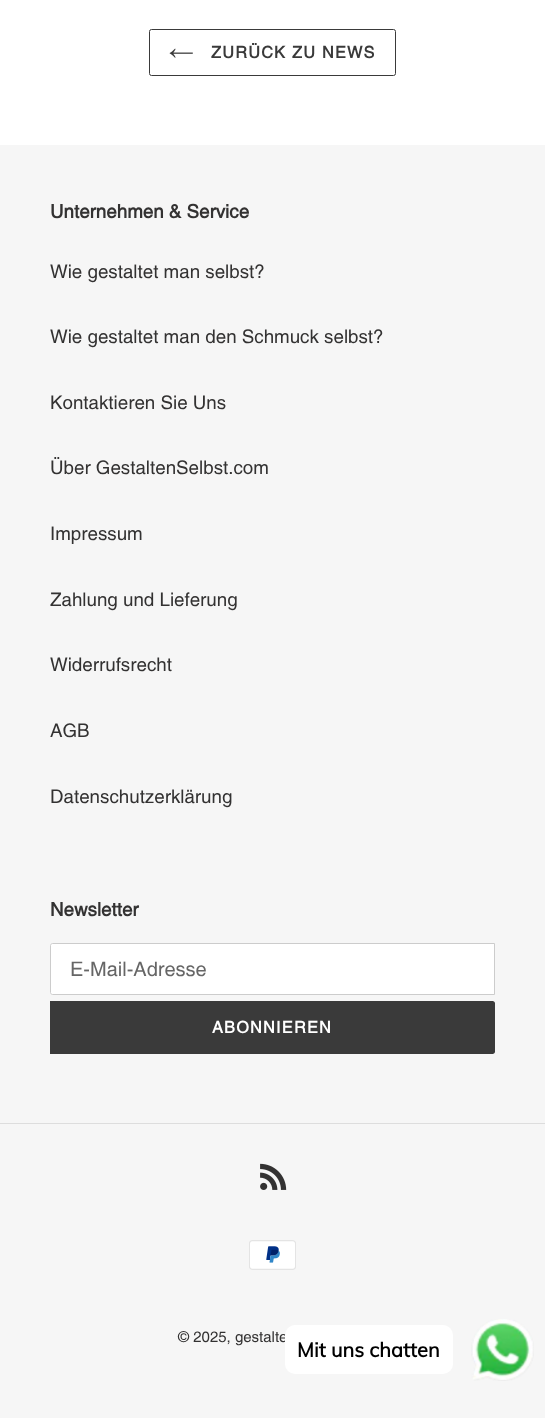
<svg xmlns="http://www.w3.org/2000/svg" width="545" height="1418">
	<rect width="100%" height="100%" fill="#FFFFFF" />
	<rect x="149.5" y="29.5" width="246" height="46" rx="2" fill="none" stroke="#3A3A3A" />
	<image x="169" y="48" width="24" height="10" href="assets/img1.png" />
	<text x="211" y="58" font-family="Helvetica" font-size="16.25" font-weight="700" letter-spacing="1.25" fill="#3A3A3A">ZURÜCK ZU NEWS</text>
	<rect x="0" y="145" width="545" height="1273" fill="#F6F6F6" />
	<text x="50" y="218" font-family="Helvetica" font-size="18.75" font-weight="700" fill="#333232">Unternehmen &amp; Service</text>
	<g font-family="Helvetica" font-size="18.75" fill="#333232">
		<text x="50" y="278">Wie gestaltet man selbst?</text>
		<text x="50" y="343">Wie gestaltet man den Schmuck selbst?</text>
		<text x="50" y="409">Kontaktieren Sie Uns</text>
		<text x="50" y="474">Über GestaltenSelbst.com</text>
		<text x="50" y="540">Impressum</text>
		<text x="50" y="606">Zahlung und Lieferung</text>
		<text x="50" y="671">Widerrufsrecht</text>
		<text x="50" y="737">AGB</text>
		<text x="50" y="803">Datenschutzerklärung</text>
	</g>
	<text x="50" y="916" font-family="Helvetica" font-size="18.75" font-weight="700" fill="#333232">Newsletter</text>
	<path d="M52.5 943.5H494.5V994.5H52.5C51.5 994.5 50.5 993.5 50.5 992.5V945.5C50.5 944.5 51.5 943.5 52.5 943.5Z" fill="#FFFFFF" stroke="#CCCCCC" />
	<text x="70" y="976" font-family="Helvetica" font-size="20" fill="#666666">E-Mail-Adresse</text>
	<path d="M50 1001H492.5C494 1001 495 1002 495 1003.5V1051.5C495 1053 494 1054 492.5 1054H50Z" fill="#3A3A3A" />
	<text x="212" y="1033" font-family="Helvetica" font-size="16.25" font-weight="700" letter-spacing="1.25" fill="#FFFFFF">ABONNIEREN</text>
	<rect x="0" y="1123" width="545" height="1" fill="#DDDDDD" />
	<image x="260" y="1163" width="27" height="27" href="assets/img2.png" />
	<image x="249" y="1240" width="47" height="30" href="assets/img3.png" />
	<text x="178" y="1342" font-family="Helvetica" font-size="15" fill="#333232">© 2025, gestalte</text>
	<image x="471" y="1319" width="63" height="62" href="assets/img4.png" />
	<rect x="285" y="1325" width="168" height="49" rx="10" fill="#FFFFFF" />
	<text x="297" y="1357" font-family="Muli" font-size="20" font-weight="700" fill="#000000">Mit uns chatten</text>
</svg>
